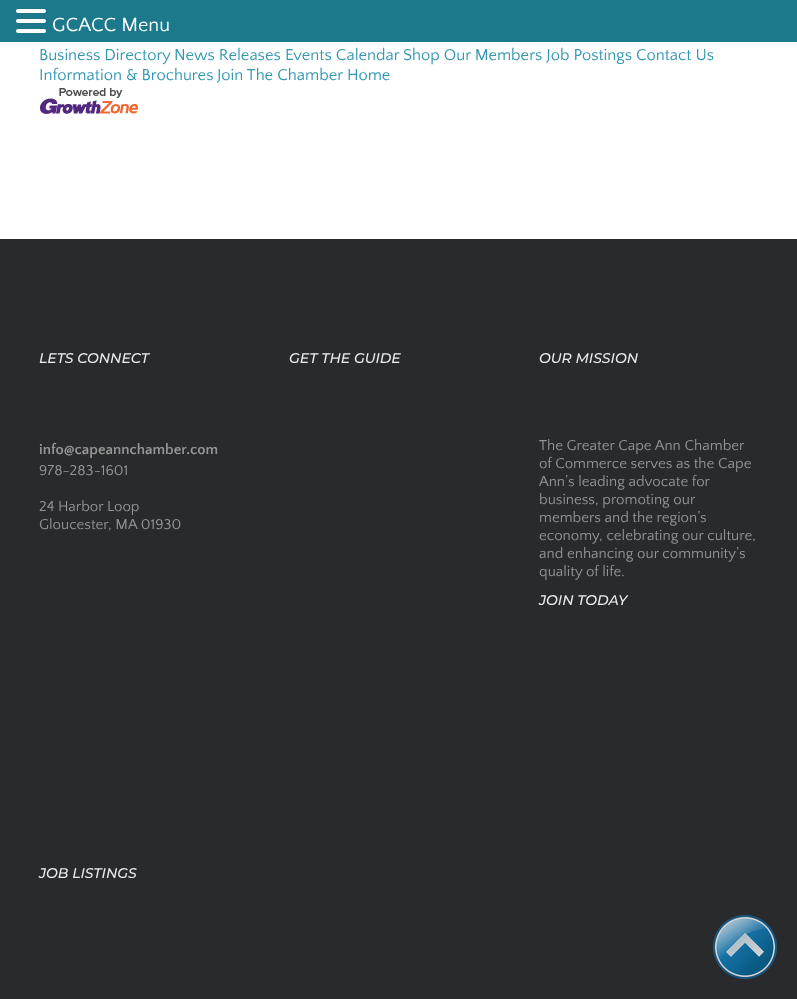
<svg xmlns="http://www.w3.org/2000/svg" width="797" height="999">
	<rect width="100%" height="100%" fill="#FFFFFF" />
	<rect x="0" y="0" width="797" height="42" fill="#1C798C" />
	<rect x="16" y="9" width="30" height="4" rx="2" fill="#FFFFFF" />
	<rect x="16" y="19" width="30" height="4" rx="2" fill="#FFFFFF" />
	<rect x="16" y="29" width="30" height="4" rx="2" fill="#FFFFFF" />
	<text x="52" y="31" font-family="Quattrocento Sans" font-size="20" fill="#FFFFFF">GCACC Menu</text>
	<g font-family="Quattrocento Sans" font-size="16.5" fill="#3196B0">
		<text x="39" y="60">Business Directory</text>
		<text x="174" y="60">News Releases</text>
		<text x="285" y="60">Events Calendar</text>
		<text x="403" y="60">Shop Our Members Job Postings Contact Us</text>
		<text x="39" y="80">Information &amp; Brochures</text>
		<text x="217" y="80">Join The Chamber</text>
		<text x="347" y="80">Home</text>
	</g>
	<image x="40" y="88" width="98" height="26" href="assets/img1.png" />
	<rect x="0" y="239" width="797" height="760" fill="#292A2C" />
	<text x="39" y="363" font-family="Montserrat" font-size="14" font-weight="100" font-style="italic" fill="#EBEBEB">LETS CONNECT</text>
	<text x="39" y="454" font-family="Quattrocento Sans" font-size="15" font-weight="700" fill="#959595">info@capeannchamber.com</text>
	<g font-family="Quattrocento Sans" font-size="15" fill="#959595">
		<text x="39" y="475">978-283-1601</text>
		<text x="39" y="511">24 Harbor Loop</text>
		<text x="39" y="529">Gloucester, MA 01930</text>
	</g>
	<g font-family="Montserrat" font-size="14" font-weight="100" font-style="italic" fill="#EBEBEB">
		<text x="289" y="363">GET THE GUIDE</text>
		<text x="539" y="363">OUR MISSION</text>
	</g>
	<g font-family="Quattrocento Sans" font-size="15" fill="#959595">
		<text x="539" y="450">The Greater Cape Ann Chamber</text>
		<text x="539" y="468">of Commerce serves as the Cape</text>
		<text x="539" y="486">Ann’s leading advocate for</text>
		<text x="539" y="504">business, promoting our</text>
		<text x="539" y="522">members and the region’s</text>
		<text x="539" y="540">economy, celebrating our culture,</text>
		<text x="539" y="558">and enhancing our community’s</text>
		<text x="539" y="576">quality of life.</text>
	</g>
	<g font-family="Montserrat" font-size="14" font-weight="100" font-style="italic" fill="#EBEBEB">
		<text x="539" y="605">JOIN TODAY</text>
		<text x="39" y="878">JOB LISTINGS</text>
	</g>
	<image x="713" y="915" width="64" height="64" href="assets/img2.png" />
</svg>
